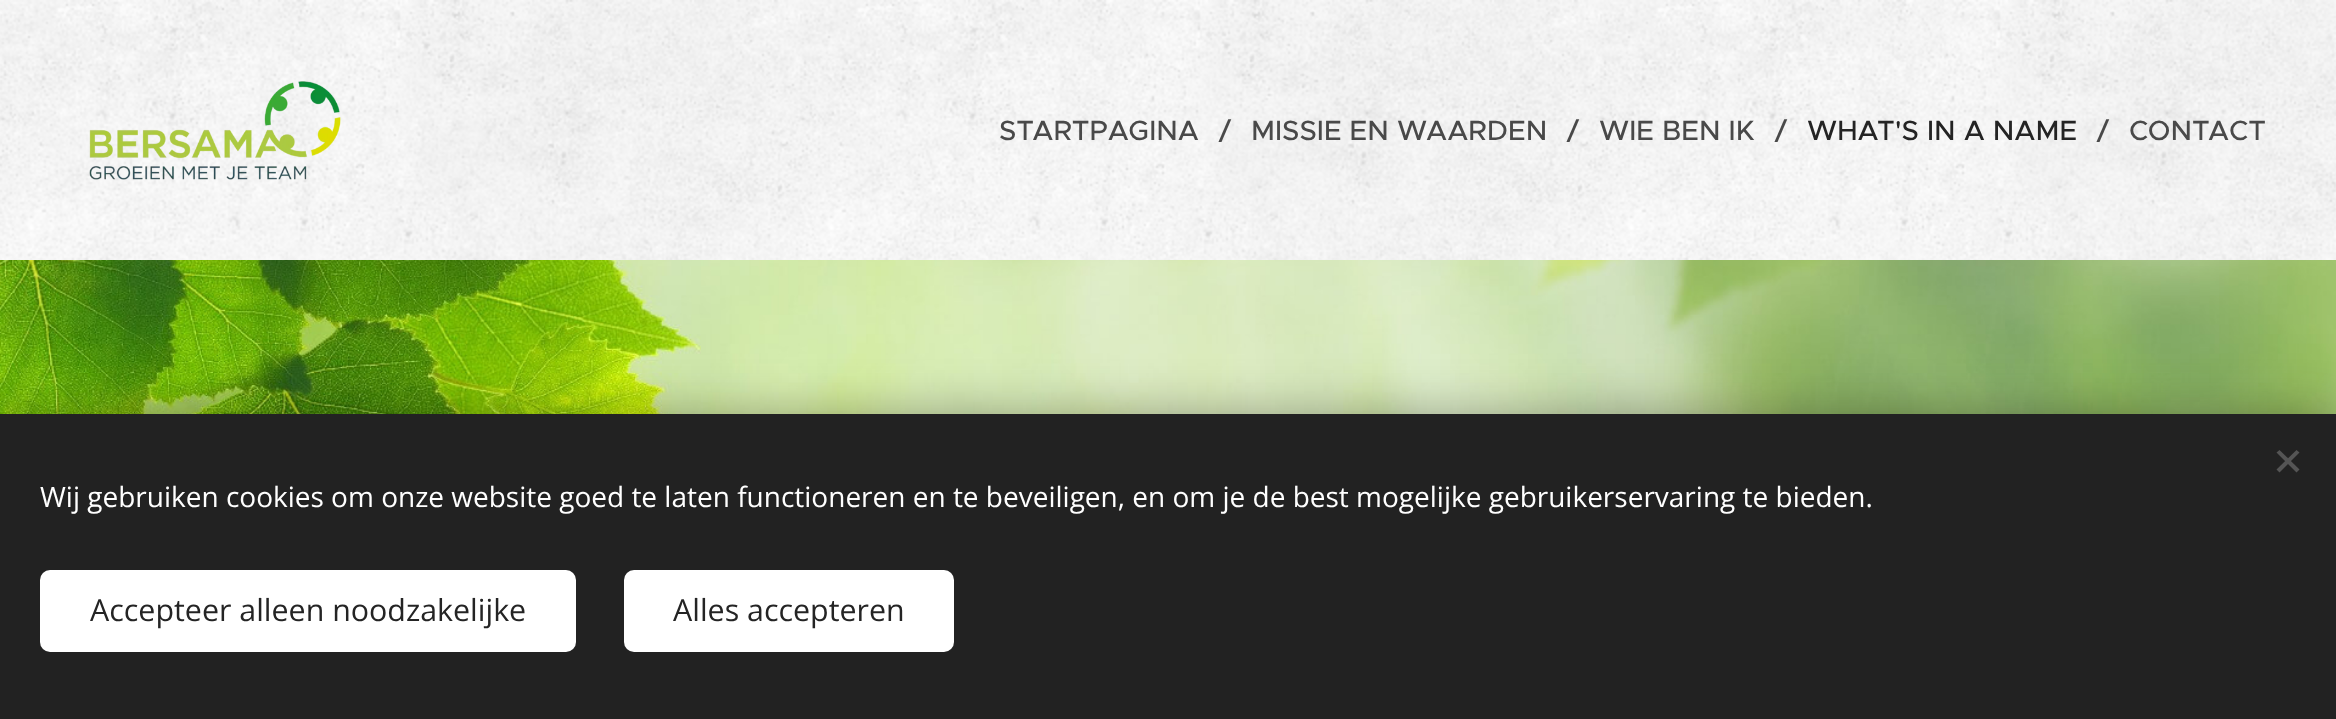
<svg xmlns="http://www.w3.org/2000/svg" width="2336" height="719">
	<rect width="100%" height="100%" fill="#FFFFFF" />
	<image x="0" y="0" width="2336" height="260" href="assets/img1.png" />
	<image x="89" y="81" width="252" height="99" href="assets/img2.png" />
	<g font-family="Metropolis" font-size="28" font-weight="500" fill="#494949">
		<text x="999" y="140">STARTPAGINA</text>
		<text x="1219" y="140">/</text>
		<text x="1251" y="140">MISSIE EN WAARDEN</text>
		<text x="1567" y="140">/</text>
		<text x="1599" y="140">WIE BEN IK</text>
		<text x="1775" y="140">/</text>
	</g>
	<text x="1807" y="140" font-family="Metropolis" font-size="28" font-weight="500" fill="#242424">WHAT'S IN A NAME</text>
	<g font-family="Metropolis" font-size="28" font-weight="500" fill="#494949">
		<text x="2097" y="140">/</text>
		<text x="2129" y="140">CONTACT</text>
	</g>
	<image x="0" y="260" width="2336" height="154" href="assets/img3.png" />
	<rect x="0" y="414" width="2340" height="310" fill="#000000" fill-opacity="0.33" filter="blur(25px)" />
	<rect x="0" y="414" width="2336" height="305" fill="#222222" />
	<path d="M2276.5 469.5L2296.5 450L2299.5 452.5L2279.5 472.5Z" fill="#555555" />
	<path d="M2279.5 450L2299.5 469.5L2296.5 472.5L2276.5 452.5Z" fill="#555555" />
	<text x="40" y="507" font-family="Open Sans" font-size="28" fill="#FFFFFF">Wij gebruiken cookies om onze website goed te laten functioneren en te beveiligen, en om je de best mogelijke gebruikerservaring te bieden.</text>
	<rect x="40" y="570" width="536" height="82" rx="10" fill="#FFFFFF" />
	<text x="90" y="621" font-family="Open Sans" font-size="30.4" fill="#242424">Accepteer alleen noodzakelijke</text>
	<rect x="624" y="570" width="330" height="82" rx="10" fill="#FFFFFF" />
	<text x="673" y="621" font-family="Open Sans" font-size="30.4" fill="#242424">Alles accepteren</text>
</svg>
